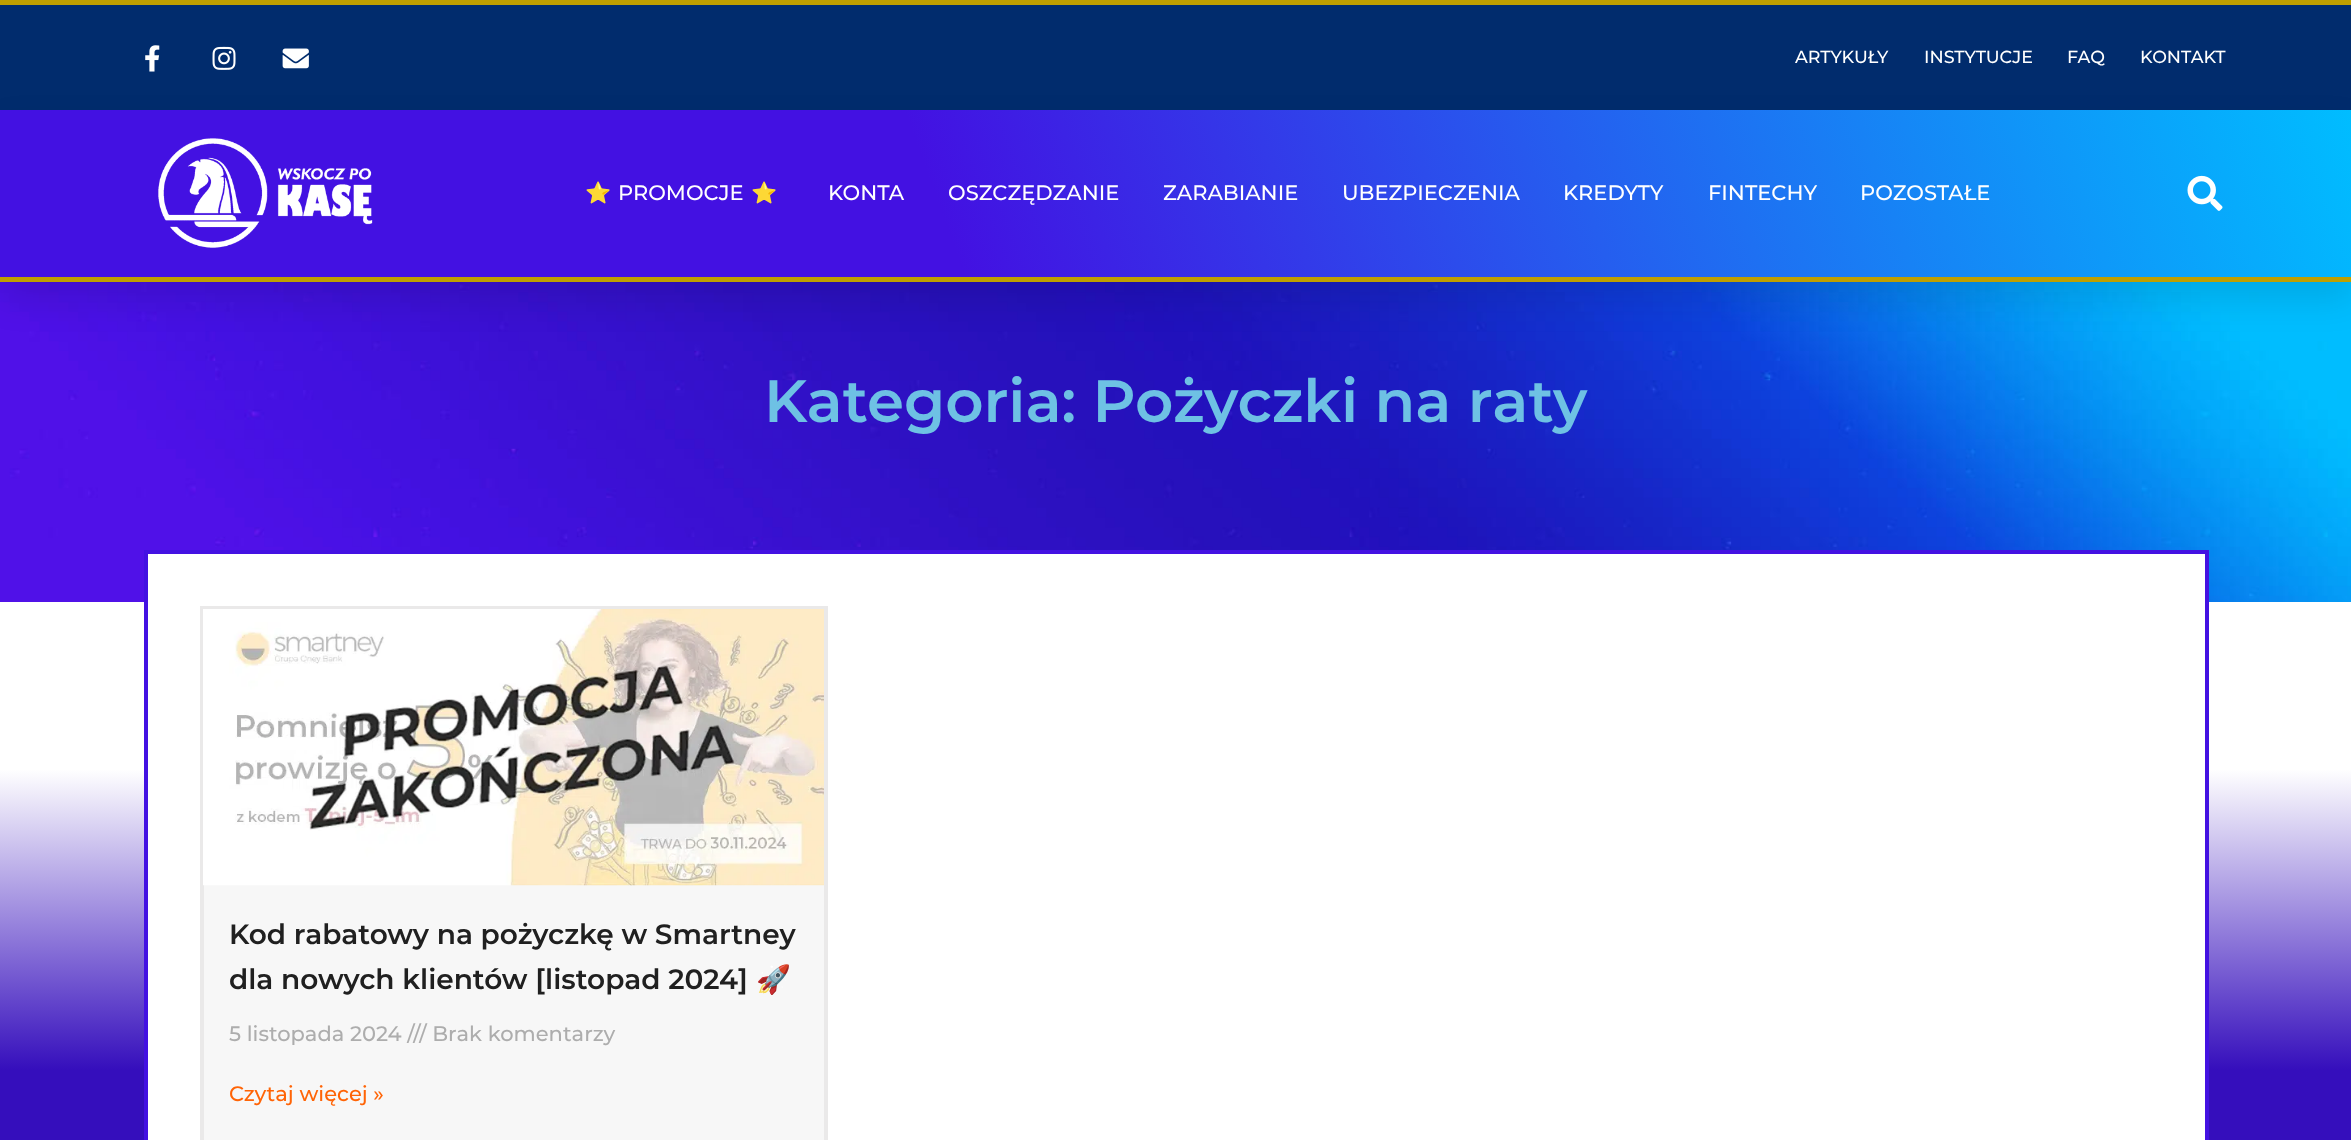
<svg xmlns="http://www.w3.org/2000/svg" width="2351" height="1140">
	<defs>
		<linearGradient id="g1" gradientUnits="userSpaceOnUse" x1="111" y1="581" x2="2241" y2="-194"><stop offset="0.4" stop-color="#4311E2" /><stop offset="1" stop-color="#00BDFF" /></linearGradient>
		<linearGradient id="g2" gradientUnits="userSpaceOnUse" x1="1176" y1="602" x2="1176" y2="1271"><stop offset="0.25" stop-color="#FFFFFF" /><stop offset="0.7" stop-color="#350EBC" /></linearGradient>
	</defs>
	<rect width="100%" height="100%" fill="#012C6D" />
	<rect x="0" y="0" width="2351" height="5" fill="#BF9F00" />
	<image x="145" y="45" width="15" height="27" href="assets/img1.png" />
	<image x="212" y="46" width="24" height="24" href="assets/img2.png" />
	<image x="282" y="48" width="27" height="21" href="assets/img3.png" />
	<g font-family="Montserrat" font-size="17.5" font-weight="500" fill="#FFFFFF">
		<text x="1795" y="63">ARTYKUŁY</text>
		<text x="1924" y="63">INSTYTUCJE</text>
		<text x="2067" y="63">FAQ</text>
		<text x="2140" y="63">KONTAKT</text>
	</g>
	<image x="0" y="282" width="2351" height="320" href="assets/img6.png" />
	<rect x="0" y="128" width="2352" height="171" fill="#000000" fill-opacity="0.1" filter="blur(17.5px)" />
	<rect x="0" y="110" width="2351" height="167" fill="url(#g1)" />
	<rect x="0" y="277" width="2351" height="5" fill="#BF9F00" />
	<image x="158" y="138" width="215" height="110" href="assets/img4.png" />
	<text x="585" y="200" font-family="Noto Color Emoji" font-size="21" fill="#FFFFFF">⭐</text>
	<text x="618" y="200" font-family="Montserrat" font-size="21" font-weight="500" fill="#FFFFFF">PROMOCJE</text>
	<text x="751" y="200" font-family="Noto Color Emoji" font-size="21" fill="#FFFFFF">⭐</text>
	<g font-family="Montserrat" font-size="21" font-weight="500" fill="#FFFFFF">
		<text x="828" y="200">KONTA</text>
		<text x="948" y="200">OSZCZĘDZANIE</text>
		<text x="1163" y="200">ZARABIANIE</text>
		<text x="1342" y="200">UBEZPIECZENIA</text>
		<text x="1563" y="200">KREDYTY</text>
		<text x="1708" y="200">FINTECHY</text>
		<text x="1860" y="200">POZOSTAŁE</text>
	</g>
	<image x="2187" y="175" width="36" height="36" href="assets/img5.png" />
	<text x="764" y="422" font-family="Montserrat" font-size="59.5" font-weight="600" fill="#6EC1E4">Kategoria: Pożyczki na raty</text>
	<rect x="0" y="602" width="2351" height="538" fill="url(#g2)" />
	<rect x="146" y="552" width="2061" height="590" fill="#FFFFFF" stroke="#4311E2" stroke-width="4" />
	<rect x="204" y="885" width="620" height="255" fill="#F7F7F7" />
	<rect x="202" y="608" width="624" height="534" fill="none" stroke="#EAE9E9" stroke-width="4" />
	<image x="203" y="609" width="621" height="277" href="assets/img7.png" />
	<g font-family="Montserrat" font-size="28" font-weight="600" fill="#202020">
		<text x="229" y="944">Kod rabatowy na pożyczkę w Smartney</text>
		<text x="229" y="989">dla nowych klientów [listopad 2024]</text>
	</g>
	<text x="756" y="989" font-family="Noto Color Emoji" font-size="28" font-weight="700" fill="#202020">🚀</text>
	<text x="229" y="1041" font-family="Montserrat" font-size="21" font-weight="500" fill="#ADADAD">5 listopada 2024 /// Brak komentarzy</text>
	<text x="229" y="1101" font-family="Montserrat" font-size="21" font-weight="500" fill="#FF6406">Czytaj więcej »</text>
</svg>
